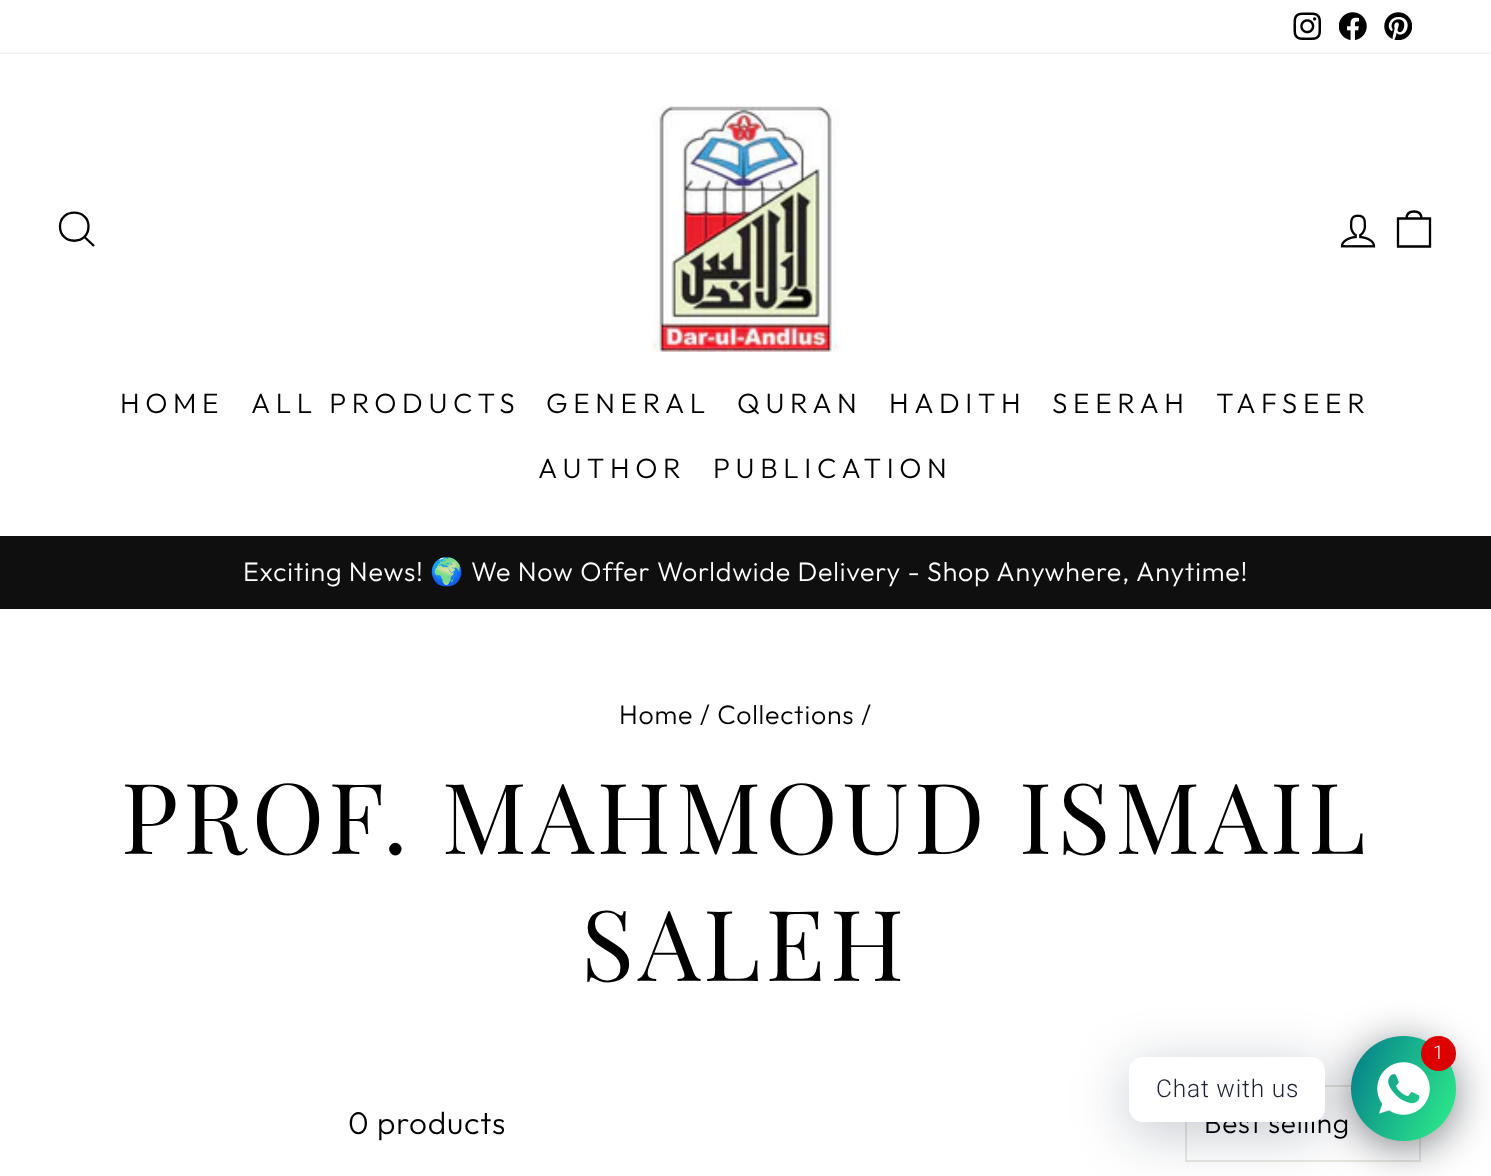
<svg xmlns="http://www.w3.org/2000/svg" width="1491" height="1176">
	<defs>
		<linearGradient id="g1" gradientUnits="userSpaceOnUse" x1="1340" y1="1059" x2="1467" y2="1118"><stop offset="0" stop-color="#047C8D" /><stop offset="1" stop-color="#2FF289" /></linearGradient>
	</defs>
	<rect width="100%" height="100%" fill="#FFFFFF" />
	<image x="1293" y="12" width="28" height="28" href="assets/img1.png" />
	<image x="1339" y="12" width="28" height="28" href="assets/img2.png" />
	<image x="1384" y="12" width="28" height="28" href="assets/img3.png" />
	<rect x="0" y="536" width="1491" height="73" fill="#0F0F0F" />
	<rect x="0" y="54" width="1491" height="482" fill="#000000" fill-opacity="0.2" filter="blur(1px)" />
	<rect x="0" y="54" width="1491" height="482" fill="#FFFFFF" />
	<path d="M88.5 226.5C88.5 245.5 60 245.5 60 226.5C60 208 88.5 208 88.5 226.5ZM94 246L84.5 237" fill="none" stroke="#000000" stroke-width="2.3" />
	<image x="651" y="106" width="189" height="246" href="assets/img4.png" />
	<image x="1340" y="214" width="36" height="34" href="assets/img5.png" />
	<path d="M1398 218.5H1430V246.5H1398ZM1406.5 218.5C1406.5 213 1410 211.5 1414 211.5C1418 211.5 1421.5 213 1421.5 218.5" fill="none" stroke="#000000" stroke-width="2.3" />
	<g font-family="Outfit" font-size="28" font-weight="300" letter-spacing="5.6" fill="#000000">
		<text x="120" y="413">HOME</text>
		<text x="251" y="413">ALL PRODUCTS</text>
		<text x="546" y="413">GENERAL</text>
		<text x="737" y="413">QURAN</text>
		<text x="889" y="413">HADITH</text>
		<text x="1052" y="413">SEERAH</text>
		<text x="1216" y="413">TAFSEER</text>
		<text x="538" y="478">AUTHOR</text>
		<text x="713" y="478">PUBLICATION</text>
	</g>
	<text x="243" y="581" font-family="Outfit" font-size="26.75" font-weight="300" letter-spacing="0.8" fill="#FFFFFF">Exciting News!</text>
	<text x="430" y="581" font-family="Noto Color Emoji" font-size="26.75" letter-spacing="0.8" fill="#FFFFFF">🌍</text>
	<text x="471" y="581" font-family="Outfit" font-size="26.75" font-weight="300" letter-spacing="0.8" fill="#FFFFFF">We Now Offer Worldwide Delivery - Shop Anywhere, Anytime!</text>
	<text x="619" y="724" font-family="Outfit" font-size="26.75" font-weight="300" letter-spacing="0.8" fill="#000000">Home / Collections /</text>
	<g font-family="Playfair Display" font-size="98" letter-spacing="4.9" fill="#000000">
		<text x="121" y="854">PROF. MAHMOUD ISMAIL</text>
		<text x="581" y="981">SALEH</text>
	</g>
	<text x="348" y="1134" font-family="Outfit" font-size="31.5" font-weight="300" letter-spacing="0.8" fill="#000000">0 products</text>
	<rect x="1186" y="1086" width="234" height="75" fill="none" stroke="#E8E8E1" stroke-width="2" />
	<text x="1204" y="1133" font-family="Outfit" font-size="28" font-weight="300" letter-spacing="0.75" fill="#000000">Best selling</text>
	<rect x="1351" y="1043" width="105" height="105" rx="52.5" fill="#020610" fill-opacity="0.5" filter="blur(21px)" />
	<circle cx="1403.5" cy="1088.5" r="52.5" fill="url(#g1)" />
	<rect x="1129" y="1068" width="196" height="64" rx="14" fill="#00122E" fill-opacity="0.24" filter="blur(28px)" />
	<image x="1377" y="1062" width="53" height="53" href="assets/img6.png" />
	<circle cx="1438.5" cy="1053.5" r="17.5" fill="#DD0000" />
	<text x="1433" y="1059" font-family="Roboto" font-size="19" font-weight="300" letter-spacing="0.8" fill="#FFFFFF">1</text>
	<rect x="1129" y="1057" width="196" height="65" rx="14" fill="#FFFFFF" />
	<text x="1156" y="1097" font-family="Roboto" font-size="24.5" font-weight="300" letter-spacing="0.8" fill="#1E2433">Chat with us</text>
</svg>
